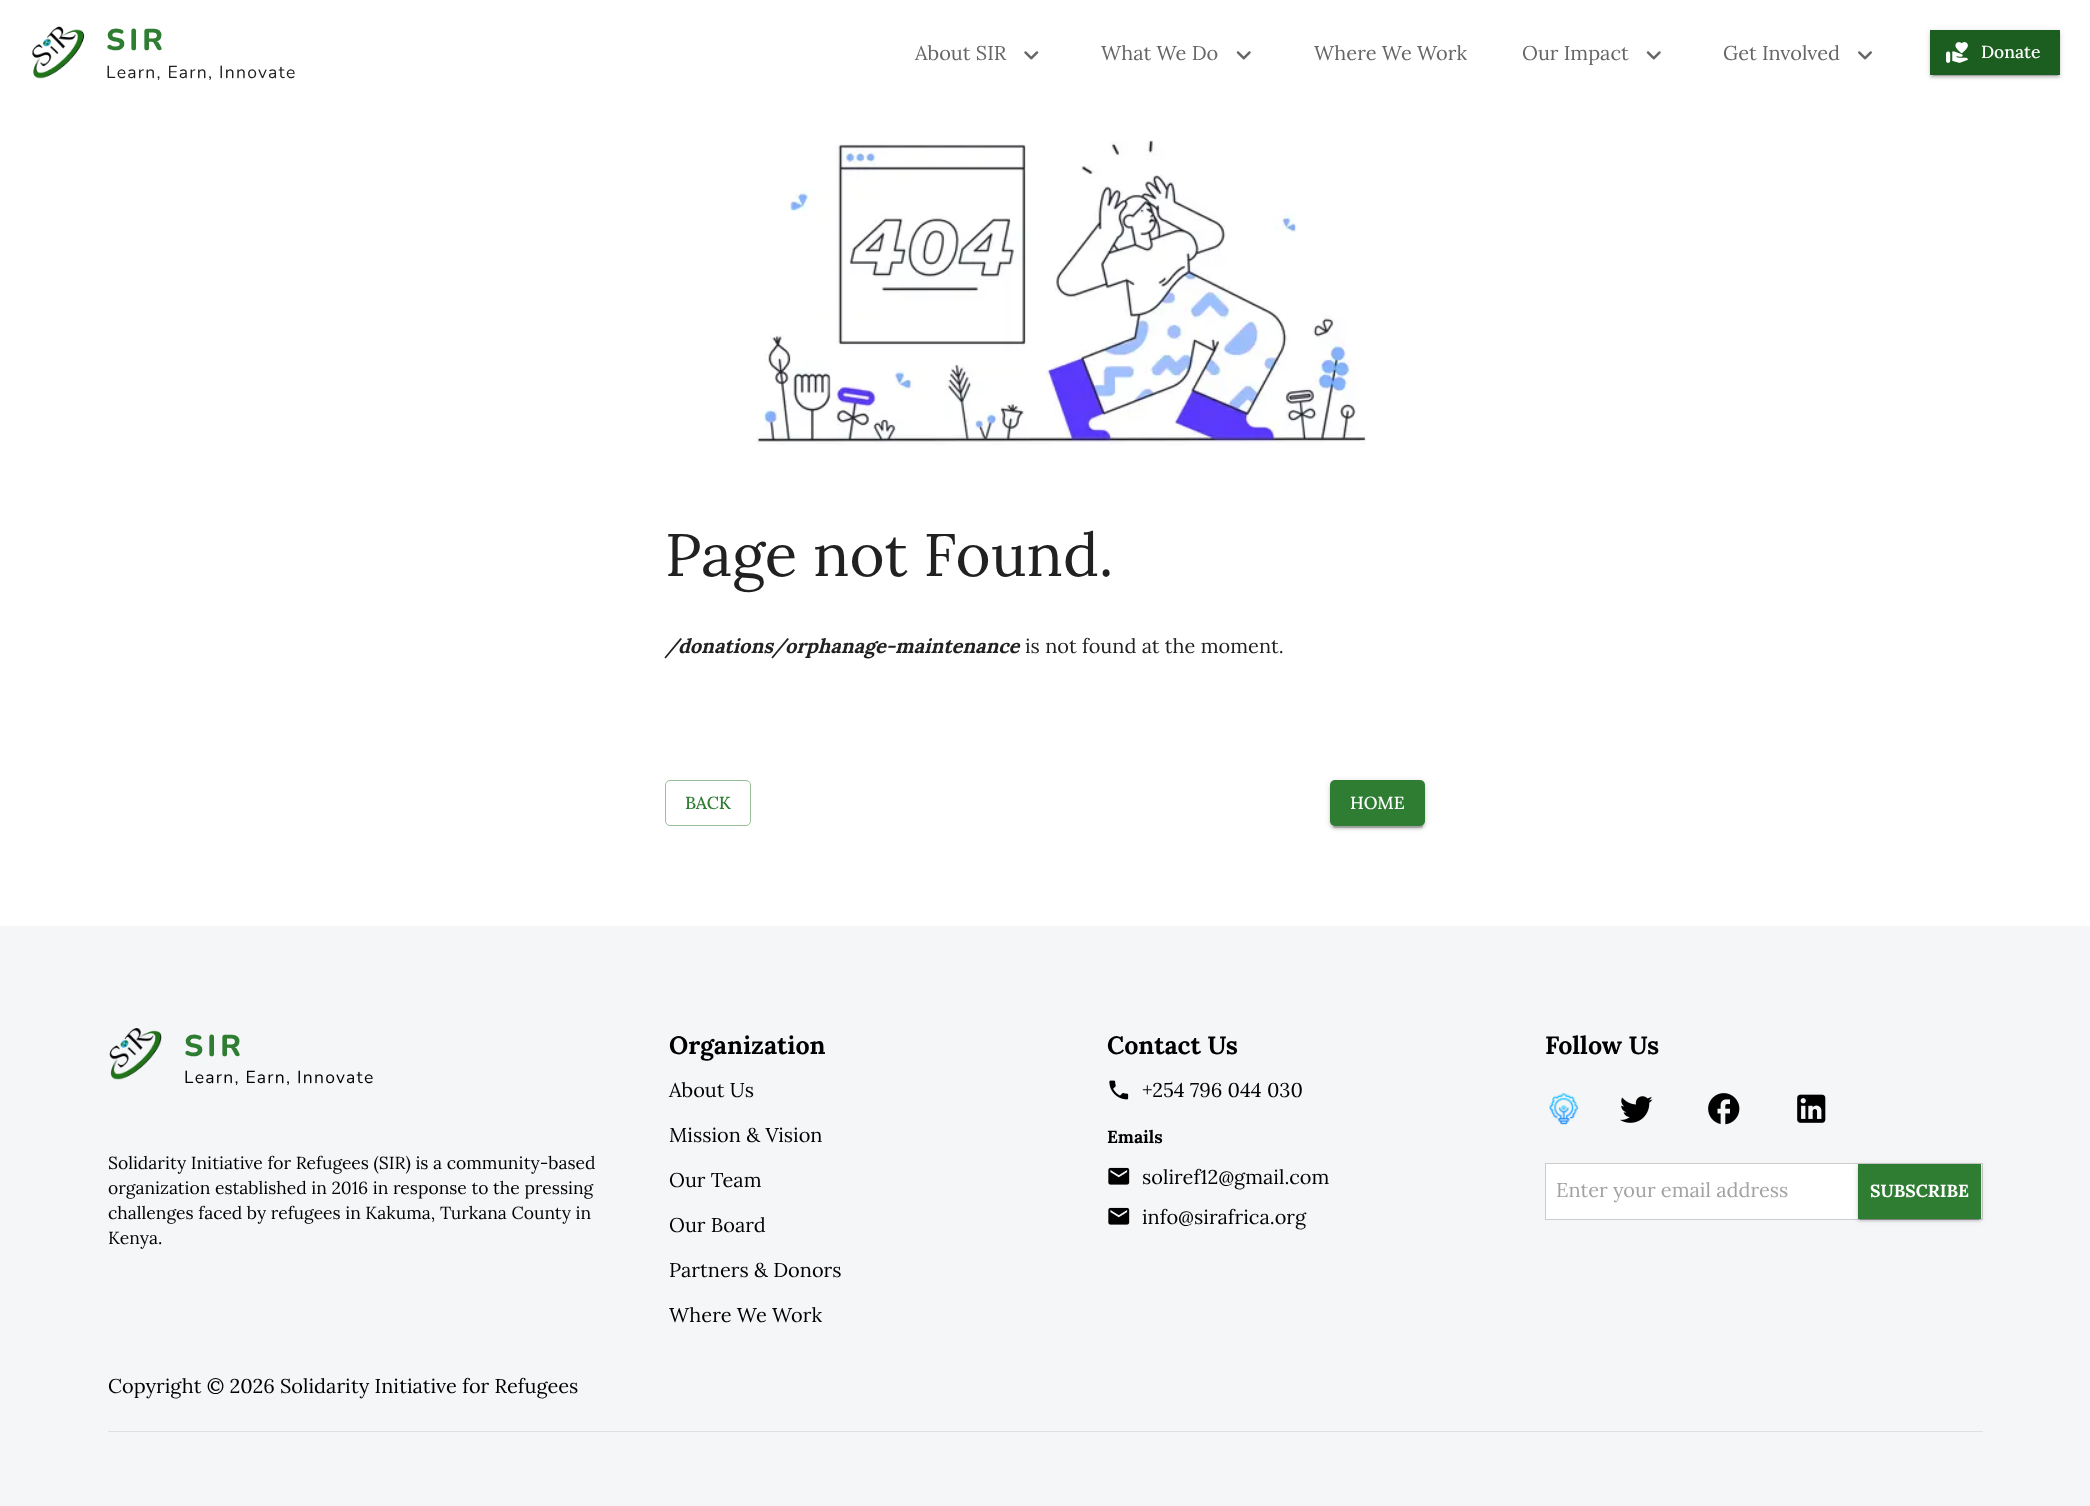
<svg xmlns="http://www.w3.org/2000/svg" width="2090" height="1506">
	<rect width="100%" height="100%" fill="#FFFFFF" />
	<image x="31" y="26" width="54" height="53" href="assets/img1.png" />
	<text x="106" y="50" font-family="Nunito" font-size="30" font-weight="800" letter-spacing="4" fill="#2E7D32">SIR</text>
	<text x="106" y="78" font-family="Nunito" font-size="17.5" letter-spacing="1.25" fill="#212121">Learn, Earn, Innovate</text>
	<text x="915" y="60" font-family="Lora" font-size="20" fill="#666666">About SIR</text>
	<image x="1024" y="51" width="15" height="9" href="assets/img2.png" />
	<text x="1101" y="60" font-family="Lora" font-size="20" fill="#666666">What We Do</text>
	<image x="1236" y="51" width="15" height="9" href="assets/img3.png" />
	<g font-family="Lora" font-size="20" fill="#666666">
		<text x="1314" y="60">Where We Work</text>
		<text x="1522" y="60">Our Impact</text>
	</g>
	<image x="1646" y="51" width="15" height="9" href="assets/img3.png" />
	<text x="1723" y="60" font-family="Lora" font-size="20" fill="#666666">Get Involved</text>
	<image x="1858" y="51" width="14" height="9" href="assets/img4.png" />
	<rect x="1930" y="31" width="130" height="45" fill="#000000" fill-opacity="0.12" filter="blur(3px)" />
	<rect x="1930" y="33" width="130" height="45" fill="#000000" fill-opacity="0.14" filter="blur(1px)" />
	<rect x="1933" y="36" width="125" height="40" fill="#000000" fill-opacity="0.2" filter="blur(0.5px)" />
	<rect x="1930" y="30" width="130" height="45" fill="#1B5E20" />
	<image x="1946" y="42" width="22" height="21" href="assets/img5.png" />
	<text x="1981" y="58" font-family="Lora" font-size="17.5" font-weight="500" fill="#FFFFFF">Donate</text>
	<image x="756" y="140" width="610" height="305" href="assets/img6.png" />
	<text x="665" y="576" font-family="Lora" font-size="60" fill="#212121">Page not Found.</text>
	<text x="665" y="653" font-family="Lora" font-size="20" font-weight="700" font-style="italic" fill="#212121">/donations/orphanage-maintenance</text>
	<text x="1025" y="653" font-family="Lora" font-size="20" fill="#212121">is not found at the moment.</text>
	<rect x="665.5" y="780.5" width="85" height="45" rx="4.5" fill="none" stroke="#97BE99" />
	<text x="685" y="809" font-family="Lora" font-size="17.5" font-weight="500" fill="#2E7D32">BACK</text>
	<rect x="1330" y="781" width="95" height="47" rx="5" fill="#000000" fill-opacity="0.12" filter="blur(3px)" />
	<rect x="1330" y="783" width="95" height="46" rx="5" fill="#000000" fill-opacity="0.14" filter="blur(1px)" />
	<rect x="1333" y="786" width="90" height="42" rx="2.5" fill="#000000" fill-opacity="0.2" filter="blur(0.5px)" />
	<rect x="1330" y="780" width="95" height="46" rx="5" fill="#2E7D32" />
	<text x="1350" y="809" font-family="Lora" font-size="17.5" font-weight="500" fill="#FFFFFF">HOME</text>
	<rect x="0" y="926" width="2090" height="580" fill="#F4F6F8" />
	<image x="109" y="1028" width="53" height="52" href="assets/img7.png" />
	<text x="184" y="1056" font-family="Nunito" font-size="30" font-weight="800" letter-spacing="4" fill="#2E7D32">SIR</text>
	<text x="184" y="1083" font-family="Nunito" font-size="17.5" letter-spacing="1.25" fill="#000000">Learn, Earn, Innovate</text>
	<g font-family="Lora" font-size="17.5" fill="#000000">
		<text x="108" y="1169">Solidarity Initiative for Refugees (SIR) is a community-based</text>
		<text x="108" y="1194">organization established in 2016 in response to the pressing</text>
		<text x="108" y="1219">challenges faced by refugees in Kakuma, Turkana County in</text>
		<text x="108" y="1244">Kenya.</text>
	</g>
	<text x="669" y="1054" font-family="Lora" font-size="25" font-weight="700" fill="#000000">Organization</text>
	<g font-family="Lora" font-size="20" fill="#000000">
		<text x="669" y="1097">About Us</text>
		<text x="669" y="1142">Mission &amp; Vision</text>
		<text x="669" y="1187">Our Team</text>
		<text x="669" y="1232">Our Board</text>
		<text x="669" y="1277">Partners &amp; Donors</text>
		<text x="669" y="1322">Where We Work</text>
	</g>
	<text x="1107" y="1054" font-family="Lora" font-size="25" font-weight="700" fill="#000000">Contact Us</text>
	<image x="1109" y="1080" width="20" height="20" href="assets/img8.png" />
	<text x="1142" y="1097" font-family="Lora" font-size="20" fill="#000000">+254 796 044 030</text>
	<text x="1107" y="1143" font-family="Lora" font-size="17.5" font-weight="700" fill="#000000">Emails</text>
	<image x="1108" y="1167" width="22" height="18" href="assets/img9.png" />
	<text x="1142" y="1184" font-family="Lora" font-size="20" fill="#000000">soliref12@gmail.com</text>
	<image x="1108" y="1207" width="22" height="18" href="assets/img9.png" />
	<text x="1142" y="1224" font-family="Lora" font-size="20" fill="#000000">info@sirafrica.org</text>
	<text x="1545" y="1054" font-family="Lora" font-size="25" font-weight="700" fill="#000000">Follow Us</text>
	<image x="1549" y="1092" width="30" height="33" href="assets/img10.png" />
	<image x="1620" y="1096" width="33" height="27" href="assets/img11.png" />
	<image x="1708" y="1093" width="32" height="32" href="assets/img12.png" />
	<image x="1797" y="1094" width="29" height="29" href="assets/img13.png" />
	<rect x="1545.5" y="1163.5" width="437" height="56" fill="#FFFFFF" stroke="#CCCCCC" />
	<text x="1556" y="1197" font-family="Lora" font-size="20" fill="#A2A2A2">Enter your email address</text>
	<rect x="1858" y="1165" width="123" height="55" fill="#000000" fill-opacity="0.12" filter="blur(3px)" />
	<rect x="1858" y="1166" width="123" height="55" fill="#000000" fill-opacity="0.14" filter="blur(1px)" />
	<rect x="1860" y="1170" width="119" height="50" fill="#000000" fill-opacity="0.2" filter="blur(0.5px)" />
	<rect x="1858" y="1164" width="123" height="55" fill="#2E7D32" />
	<text x="1870" y="1197" font-family="Lora" font-size="17.5" font-weight="700" fill="#FFFFFF">SUBSCRIBE</text>
	<text x="108" y="1393" font-family="Lora" font-size="20" fill="#000000">Copyright © 2026 Solidarity Initiative for Refugees</text>
	<rect x="108" y="1431" width="1875" height="1" fill="#E0E0E0" />
</svg>
